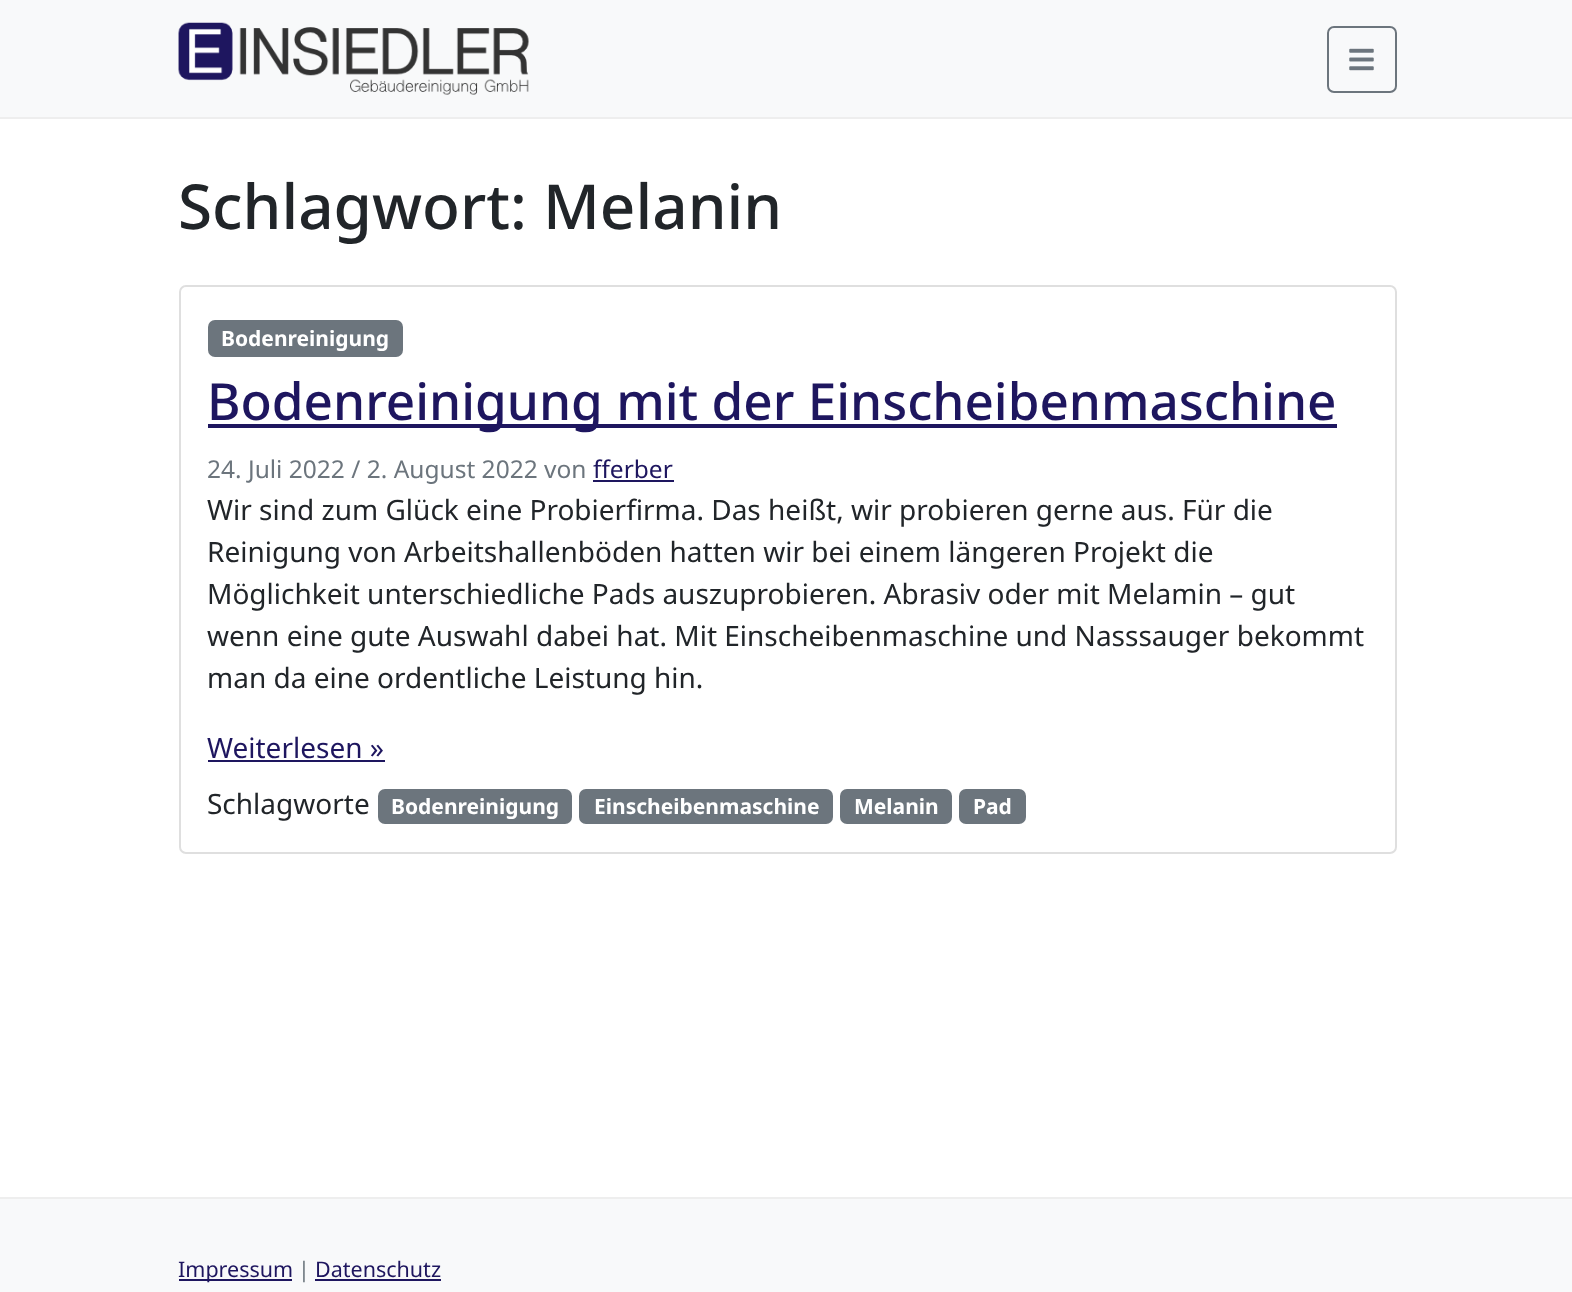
<svg xmlns="http://www.w3.org/2000/svg" width="1572" height="1292">
	<rect width="100%" height="100%" fill="#FFFFFF" />
	<rect x="0" y="0" width="1572" height="117" fill="#F8F9FA" />
	<rect x="0" y="117" width="1572" height="2" fill="#EEEEEE" />
	<image x="178" y="22" width="351" height="73" href="assets/img1.png" />
	<rect x="1328" y="27" width="68" height="65" rx="6" fill="none" stroke="#6C757D" stroke-width="2" />
	<image x="1349" y="48" width="25" height="23" href="assets/img2.png" />
	<text x="178" y="229" font-family="Noto Sans" font-size="62" font-weight="500" fill="#212529">Schlagwort: Melanin</text>
	<rect x="180" y="286" width="1216" height="567" rx="6" fill="none" stroke="#DFDFDF" stroke-width="2" />
	<rect x="208" y="320" width="195" height="37" rx="7" fill="#6C757D" />
	<text x="221" y="346" font-family="Noto Sans" font-size="21" font-weight="700" fill="#FFFFFF">Bodenreinigung</text>
	<rect x="208" y="424" width="1129" height="4" fill="#1E165F" />
	<text x="207" y="420" font-family="Noto Sans" font-size="51.25" font-weight="500" fill="#1E165F">Bodenreinigung mit der Einscheibenmaschine</text>
	<text x="207" y="478" font-family="Noto Sans" font-size="24.5" fill="#6C757D">24. Juli 2022 / 2. August 2022 von</text>
	<text x="593" y="478" font-family="Noto Sans" font-size="24.5" fill="#1E165F">fferber</text>
	<rect x="593" y="480" width="81" height="2" fill="#1E165F" />
	<g font-family="Noto Sans" font-size="28" fill="#212529">
		<text x="207" y="520">Wir sind zum Glück eine Probierfirma. Das heißt, wir probieren gerne aus. Für die</text>
		<text x="207" y="562">Reinigung von Arbeitshallenböden hatten wir bei einem längeren Projekt die</text>
		<text x="207" y="604">Möglichkeit unterschiedliche Pads auszuprobieren. Abrasiv oder mit Melamin – gut</text>
		<text x="207" y="646">wenn eine gute Auswahl dabei hat. Mit Einscheibenmaschine und Nasssauger bekommt</text>
		<text x="207" y="688">man da eine ordentliche Leistung hin.</text>
	</g>
	<text x="207" y="758" font-family="Noto Sans" font-size="28" fill="#1E165F">Weiterlesen »</text>
	<rect x="208" y="760" width="177" height="2" fill="#1E165F" />
	<text x="207" y="814" font-family="Noto Sans" font-size="28" fill="#212529">Schlagworte</text>
	<rect x="378" y="789" width="194" height="35" rx="7" fill="#6C757D" />
	<text x="391" y="814" font-family="Noto Sans" font-size="21" font-weight="700" fill="#FFFFFF">Bodenreinigung</text>
	<rect x="579" y="789" width="254" height="35" rx="7" fill="#6C757D" />
	<text x="594" y="814" font-family="Noto Sans" font-size="21" font-weight="700" fill="#FFFFFF">Einscheibenmaschine</text>
	<rect x="840" y="789" width="112" height="35" rx="7" fill="#6C757D" />
	<text x="854" y="814" font-family="Noto Sans" font-size="21" font-weight="700" fill="#FFFFFF">Melanin</text>
	<rect x="959" y="789" width="67" height="35" rx="7" fill="#6C757D" />
	<text x="973" y="814" font-family="Noto Sans" font-size="21" font-weight="700" fill="#FFFFFF">Pad</text>
	<rect x="0" y="1197" width="1572" height="2" fill="#EEEEEE" />
	<rect x="0" y="1199" width="1572" height="93" fill="#F8F9FA" />
	<rect x="179" y="1279" width="113" height="2" fill="#1E165F" />
	<text x="178" y="1277" font-family="Noto Sans" font-size="21.5" fill="#1E165F">Impressum</text>
	<text x="298" y="1277" font-family="Noto Sans" font-size="21.5" fill="#6C757D">|</text>
	<text x="315" y="1277" font-family="Noto Sans" font-size="21.5" fill="#1E165F">Datenschutz</text>
	<rect x="315" y="1279" width="126" height="2" fill="#1E165F" />
</svg>
